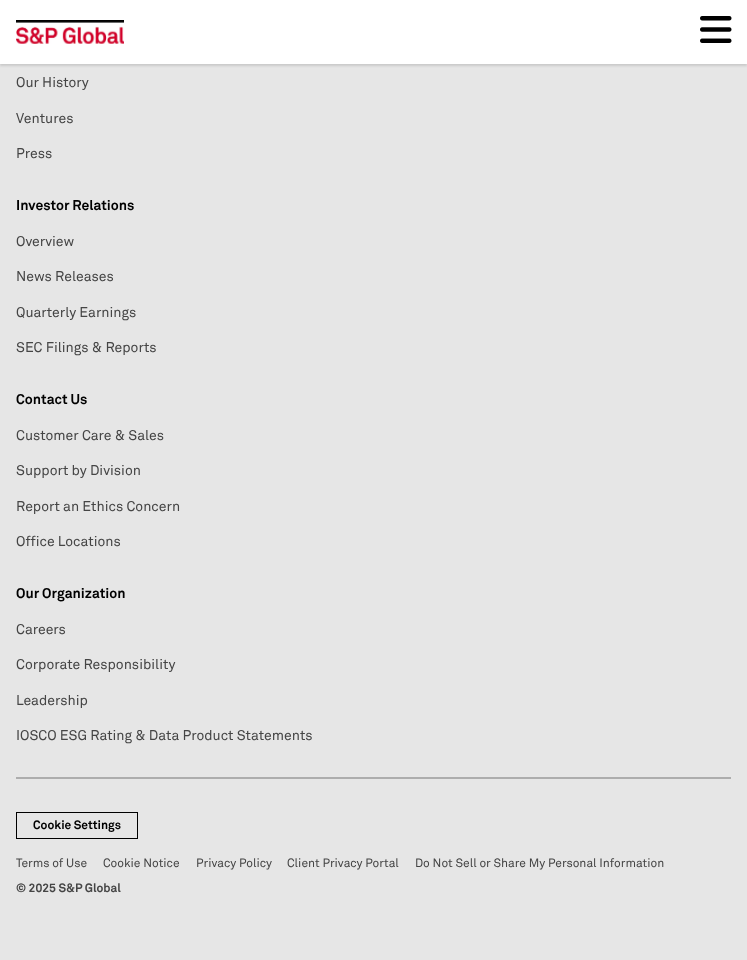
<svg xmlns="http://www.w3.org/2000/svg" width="747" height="960">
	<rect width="100%" height="100%" fill="#E6E6E6" />
	<rect x="0" y="2" width="747" height="64" fill="#000000" fill-opacity="0.12" filter="blur(1px)" />
	<rect x="0" y="0" width="747" height="64" fill="#FFFFFF" />
	<image x="16" y="20" width="108" height="24" href="assets/img1.png" />
	<image x="700" y="16" width="32" height="27" href="assets/img2.png" />
	<g font-family="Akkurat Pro" font-size="14" fill="#454545">
		<text x="16" y="87">Our History</text>
		<text x="16" y="123">Ventures</text>
		<text x="16" y="158">Press</text>
	</g>
	<text x="16" y="210" font-family="Akkurat Pro" font-size="14" font-weight="700" fill="#000000">Investor Relations</text>
	<g font-family="Akkurat Pro" font-size="14" fill="#454545">
		<text x="16" y="246">Overview</text>
		<text x="16" y="281">News Releases</text>
		<text x="16" y="317">Quarterly Earnings</text>
		<text x="16" y="352">SEC Filings &amp; Reports</text>
	</g>
	<text x="16" y="404" font-family="Akkurat Pro" font-size="14" font-weight="700" fill="#000000">Contact Us</text>
	<g font-family="Akkurat Pro" font-size="14" fill="#454545">
		<text x="16" y="440">Customer Care &amp; Sales</text>
		<text x="16" y="475">Support by Division</text>
		<text x="16" y="511">Report an Ethics Concern</text>
		<text x="16" y="546">Office Locations</text>
	</g>
	<text x="16" y="598" font-family="Akkurat Pro" font-size="14" font-weight="700" fill="#000000">Our Organization</text>
	<g font-family="Akkurat Pro" font-size="14" fill="#454545">
		<text x="16" y="634">Careers</text>
		<text x="16" y="669">Corporate Responsibility</text>
		<text x="16" y="705">Leadership</text>
		<text x="16" y="740">IOSCO ESG Rating &amp; Data Product Statements</text>
	</g>
	<rect x="16" y="777" width="715" height="2" fill="#ADADAD" />
	<rect x="16.5" y="812.5" width="121" height="26" fill="none" stroke="#000000" />
	<text x="33" y="829" font-family="Akkurat Pro" font-size="12" font-weight="700" fill="#000000">Cookie Settings</text>
	<g font-family="Akkurat Pro" font-size="12" fill="#454545">
		<text x="16" y="867">Terms of Use</text>
		<text x="103" y="867">Cookie Notice</text>
		<text x="196" y="867">Privacy Policy</text>
		<text x="287" y="867">Client Privacy Portal</text>
		<text x="415" y="867">Do Not Sell or Share My Personal Information</text>
	</g>
	<text x="16" y="892" font-family="Akkurat Pro" font-size="12" font-weight="700" fill="#454545">© 2025 S&amp;P Global</text>
</svg>
